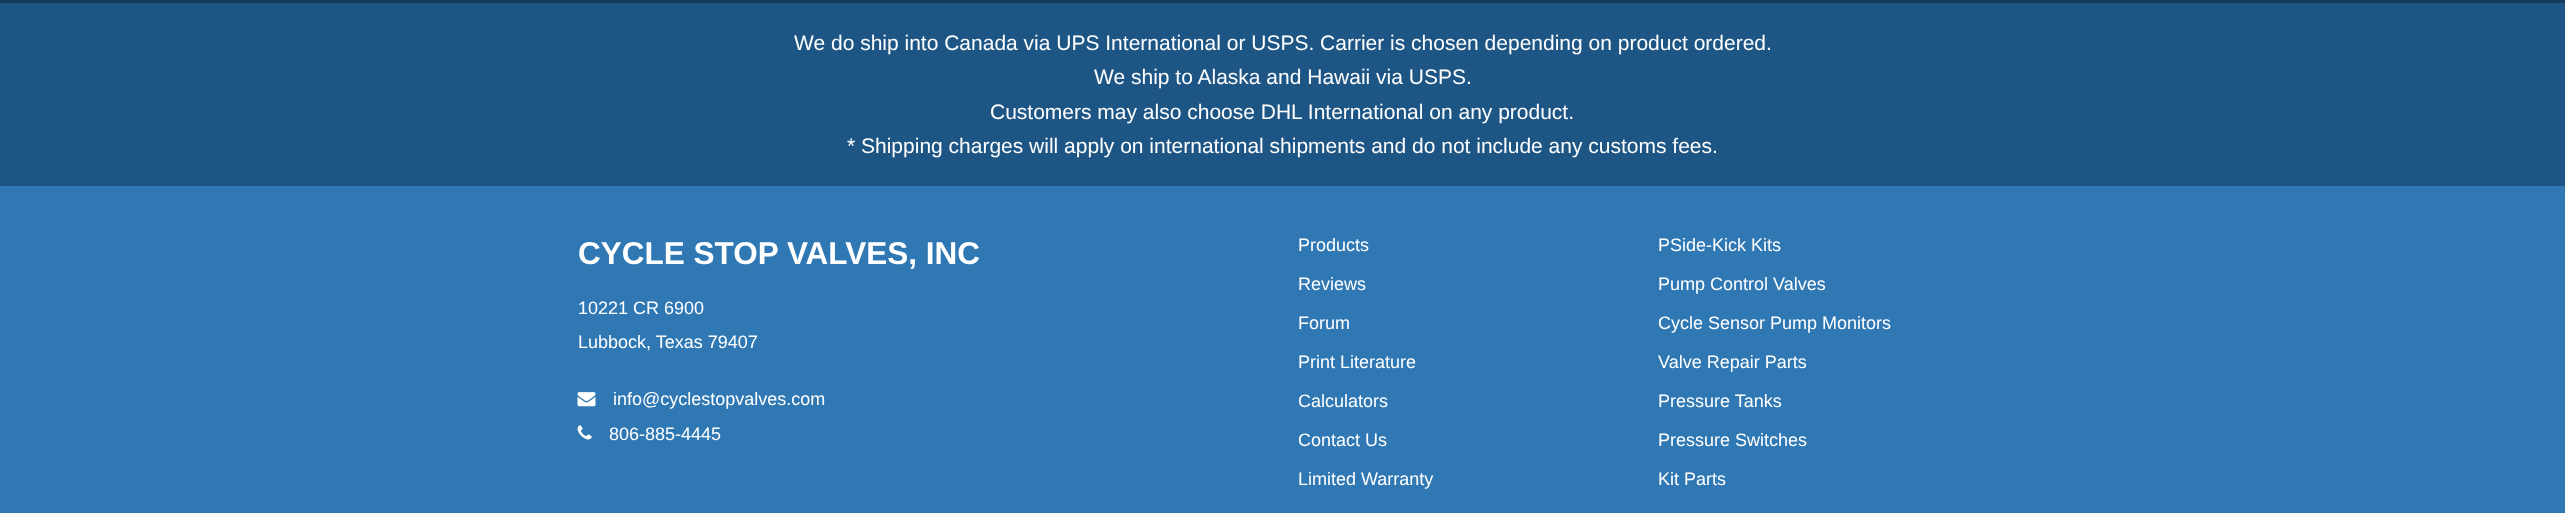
<svg xmlns="http://www.w3.org/2000/svg" width="2565" height="513">
	<rect width="100%" height="100%" fill="#1D5584" />
	<rect x="0" y="0" width="2565" height="3" fill="#143B5D" />
	<g font-family="Liberation Sans" font-size="21" fill="#FFFFFF">
		<text x="794" y="50">We do ship into Canada via UPS International or USPS. Carrier is chosen depending on product ordered.</text>
		<text x="1094" y="84">We ship to Alaska and Hawaii via USPS.</text>
		<text x="990" y="119">Customers may also choose DHL International on any product.</text>
		<text x="847" y="153">* Shipping charges will apply on international shipments and do not include any customs fees.</text>
	</g>
	<rect x="0" y="186" width="2565" height="327" fill="#3078B4" />
	<text x="578" y="264" font-family="Liberation Sans" font-size="31.5" font-weight="700" fill="#FFFFFF">CYCLE STOP VALVES, INC</text>
	<g font-family="Liberation Sans" font-size="18" fill="#FFFFFF">
		<text x="578" y="314">10221 CR 6900</text>
		<text x="578" y="348">Lubbock, Texas 79407</text>
	</g>
	<image x="577" y="392" width="19" height="15" href="assets/img1.png" />
	<text x="613" y="405" font-family="Liberation Sans" font-size="18" fill="#FFFFFF">info@cyclestopvalves.com</text>
	<image x="577" y="425" width="15" height="15" href="assets/img2.png" />
	<g font-family="Liberation Sans" font-size="18" fill="#FFFFFF">
		<text x="609" y="440">806-885-4445</text>
		<text x="1298" y="251">Products</text>
		<text x="1298" y="290">Reviews</text>
		<text x="1298" y="329">Forum</text>
		<text x="1298" y="368">Print Literature</text>
		<text x="1298" y="407">Calculators</text>
		<text x="1298" y="446">Contact Us</text>
		<text x="1298" y="485">Limited Warranty</text>
		<text x="1658" y="251">PSide-Kick Kits</text>
		<text x="1658" y="290">Pump Control Valves</text>
		<text x="1658" y="329">Cycle Sensor Pump Monitors</text>
		<text x="1658" y="368">Valve Repair Parts</text>
		<text x="1658" y="407">Pressure Tanks</text>
		<text x="1658" y="446">Pressure Switches</text>
		<text x="1658" y="485">Kit Parts</text>
	</g>
</svg>
